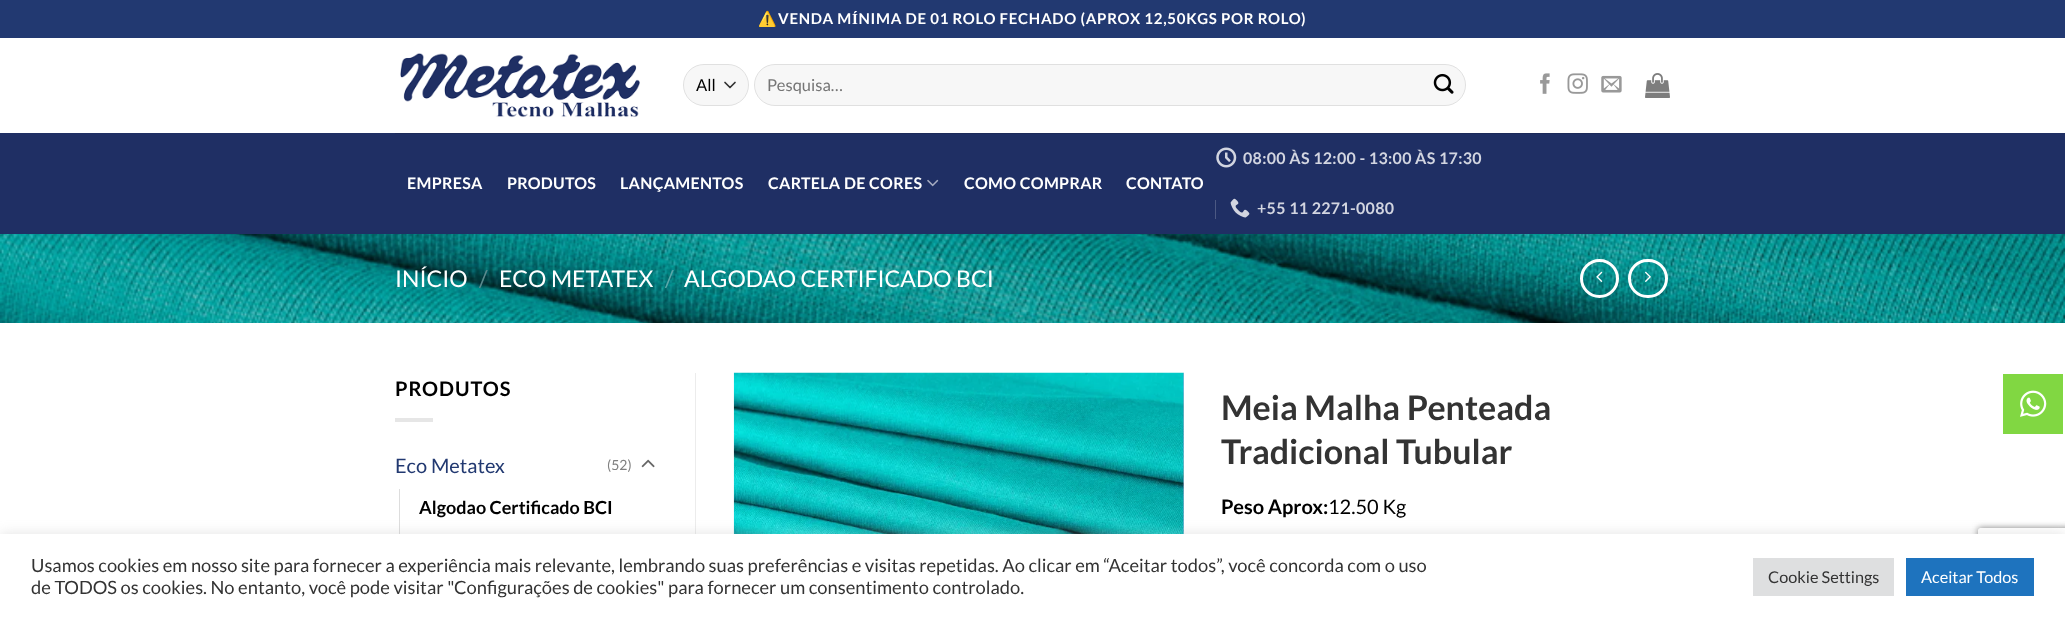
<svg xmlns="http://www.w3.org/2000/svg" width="2065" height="619">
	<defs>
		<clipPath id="clip1"><path d="M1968 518H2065V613H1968ZM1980.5 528H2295.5C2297 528 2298 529 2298 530.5V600.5C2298 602 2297 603 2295.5 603H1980.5C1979 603 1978 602 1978 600.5V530.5C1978 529 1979 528 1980.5 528Z" clip-rule="evenodd" /></clipPath>
	</defs>
	<rect width="100%" height="100%" fill="#FFFFFF" />
	<rect x="0" y="0" width="2065" height="38" fill="#223971" />
	<text x="758" y="24" font-family="Noto Color Emoji" font-size="15" font-weight="700" letter-spacing="0.75" fill="#FFFFFF">⚠️</text>
	<text x="778" y="24" word-spacing="-0.25" font-family="Lato" font-size="15" font-weight="700" letter-spacing="0.75" fill="#FFFFFF">VENDA MÍNIMA DE 01 ROLO FECHADO (APROX 12,50KGS POR ROLO)</text>
	<image x="400" y="53" width="240" height="65" href="assets/img1.png" />
	<rect x="683" y="64" width="66" height="42" rx="21" fill="#F7F7F7" />
	<path d="M725 82.5L730 87.5L735 82.5" fill="none" stroke="#333333" stroke-width="1.7" stroke-linecap="round" stroke-linejoin="round" />
	<rect x="683.5" y="64.5" width="65" height="41" rx="20.5" fill="none" stroke="#000000" stroke-opacity="0.09" />
	<text x="696" y="91" font-family="Lato" font-size="16.5" fill="#000000">All</text>
	<rect x="754" y="64" width="712" height="42" rx="21" fill="#F7F7F7" />
	<rect x="754.5" y="64.5" width="711" height="41" rx="20.5" fill="none" stroke="#000000" stroke-opacity="0.09" />
	<text x="767" y="91" font-family="Lato" font-size="16.5" fill="#757575">Pesquisa…</text>
	<image x="1433" y="73" width="21" height="21" href="assets/img2.png" />
	<image x="1540" y="73" width="10" height="21" href="assets/img3.png" />
	<image x="1567" y="73" width="21" height="21" href="assets/img4.png" />
	<image x="1601" y="75" width="21" height="18" href="assets/img5.png" />
	<image x="1645" y="73" width="25" height="25" href="assets/img6.png" />
	<rect x="0" y="133" width="2065" height="101" fill="#1F2F64" />
	<rect x="395" y="133" width="1275" height="1" fill="#1C2A5A" />
	<g font-family="Lato" font-size="16" font-weight="700" letter-spacing="0.3" fill="#FFFFFF">
		<text x="407" y="189">EMPRESA</text>
		<text x="507" y="189">PRODUTOS</text>
		<text x="620" y="189">LANÇAMENTOS</text>
		<text x="768" y="189">CARTELA DE CORES</text>
	</g>
	<image x="927" y="179" width="12" height="8" href="assets/img7.png" />
	<g font-family="Lato" font-size="16" font-weight="700" letter-spacing="0.3" fill="#FFFFFF">
		<text x="964" y="189">COMO COMPRAR</text>
		<text x="1126" y="189">CONTATO</text>
	</g>
	<image x="1216" y="147" width="21" height="21" href="assets/img8.png" />
	<text x="1243" y="164" font-family="Lato" font-size="16" font-weight="700" letter-spacing="0.3" fill="#D2D5E0">08:00 ÀS 12:00 - 13:00 ÀS 17:30</text>
	<rect x="1215" y="200" width="1" height="19" fill="#4C5983" />
	<image x="1230" y="198" width="20" height="20" href="assets/img9.png" />
	<text x="1257" y="214" font-family="Lato" font-size="16" font-weight="700" letter-spacing="0.3" fill="#D2D5E0">+55 11 2271-0080</text>
	<image x="0" y="234" width="2065" height="89" href="assets/img10.png" />
	<text x="395" y="287" font-family="Lato" font-size="23" fill="#FFFFFF">INÍCIO</text>
	<text x="479" y="287" font-family="Lato" font-size="23" fill="#5B8A8D">/</text>
	<text x="499" y="287" font-family="Lato" font-size="23" fill="#FFFFFF">ECO METATEX</text>
	<text x="665" y="287" font-family="Lato" font-size="23" fill="#5BA8A9">/</text>
	<text x="684" y="287" font-family="Lato" font-size="23" fill="#FFFFFF">ALGODAO CERTIFICADO BCI</text>
	<circle cx="1599.5" cy="278.5" r="18" fill="none" stroke="#FFFFFF" stroke-width="3" />
	<image x="1596" y="271" width="7" height="11" href="assets/img11.png" />
	<rect x="1629.5" y="260.5" width="37" height="36" rx="18" fill="none" stroke="#FFFFFF" stroke-width="3" />
	<image x="1645" y="271" width="6" height="11" href="assets/img12.png" />
	<text x="395" y="396" font-family="Lato" font-size="20" font-weight="700" letter-spacing="1" fill="#000000">PRODUTOS</text>
	<rect x="395" y="418" width="38" height="4" fill="#E6E6E6" />
	<text x="395" y="473" font-family="Lato" font-size="20" fill="#223971">Eco Metatex</text>
	<text x="607" y="470" font-family="Lato" font-size="14" fill="#808080">(52)</text>
	<image x="641" y="459" width="14" height="9" href="assets/img13.png" />
	<rect x="399" y="489" width="1" height="45" fill="#DDDDDD" />
	<text x="419" y="514" font-family="Lato" font-size="18" font-weight="700" fill="#000000">Algodao Certificado BCI</text>
	<rect x="695" y="373" width="1" height="161" fill="#ECECEC" />
	<image x="733" y="372" width="451" height="162" href="assets/img14.png" />
	<image x="1183" y="372" width="1" height="162" href="assets/img15.png" />
	<g font-family="Lato" font-size="34" font-weight="700" fill="#333333">
		<text x="1221" y="420">Meia Malha Penteada</text>
		<text x="1221" y="464">Tradicional Tubular</text>
	</g>
	<text x="1221" y="514" font-family="Lato" font-size="20" font-weight="700" fill="#000000">Peso Aprox:</text>
	<text x="1328" y="514" font-family="Lato" font-size="20" fill="#000000">12.50 Kg</text>
	<rect x="2003" y="374" width="60" height="60" fill="#81D742" />
	<image x="2020" y="390" width="27" height="27" href="assets/img16.png" />
	<g clip-path="url(#clip1)">
		<rect x="1978" y="528" width="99" height="75" rx="2.5" fill="#808080" filter="blur(3px)" />
	</g>
	<rect x="0" y="533" width="2065" height="86" fill="#ACABAB" fill-opacity="0.3" filter="blur(6px)" />
	<rect x="0" y="534" width="2065" height="85" fill="#FFFFFF" />
	<g font-family="Lato" font-size="18.33" fill="#333333">
		<text x="31" y="572">Usamos cookies em nosso site para fornecer a experiência mais relevante, lembrando suas preferências e visitas repetidas. Ao clicar em “Aceitar todos”, você concorda com o uso</text>
		<text x="31" y="594">de TODOS os cookies. No entanto, você pode visitar "Configurações de cookies" para fornecer um consentimento controlado.</text>
	</g>
	<rect x="1753" y="558" width="141" height="38" fill="#DEDFE0" />
	<text x="1768" y="583" font-family="Lato" font-size="16.25" fill="#333333">Cookie Settings</text>
	<rect x="1906" y="558" width="128" height="38" fill="#1E73BE" />
	<text x="1921" y="583" font-family="Lato" font-size="16.25" fill="#FFFFFF">Aceitar Todos</text>
</svg>
